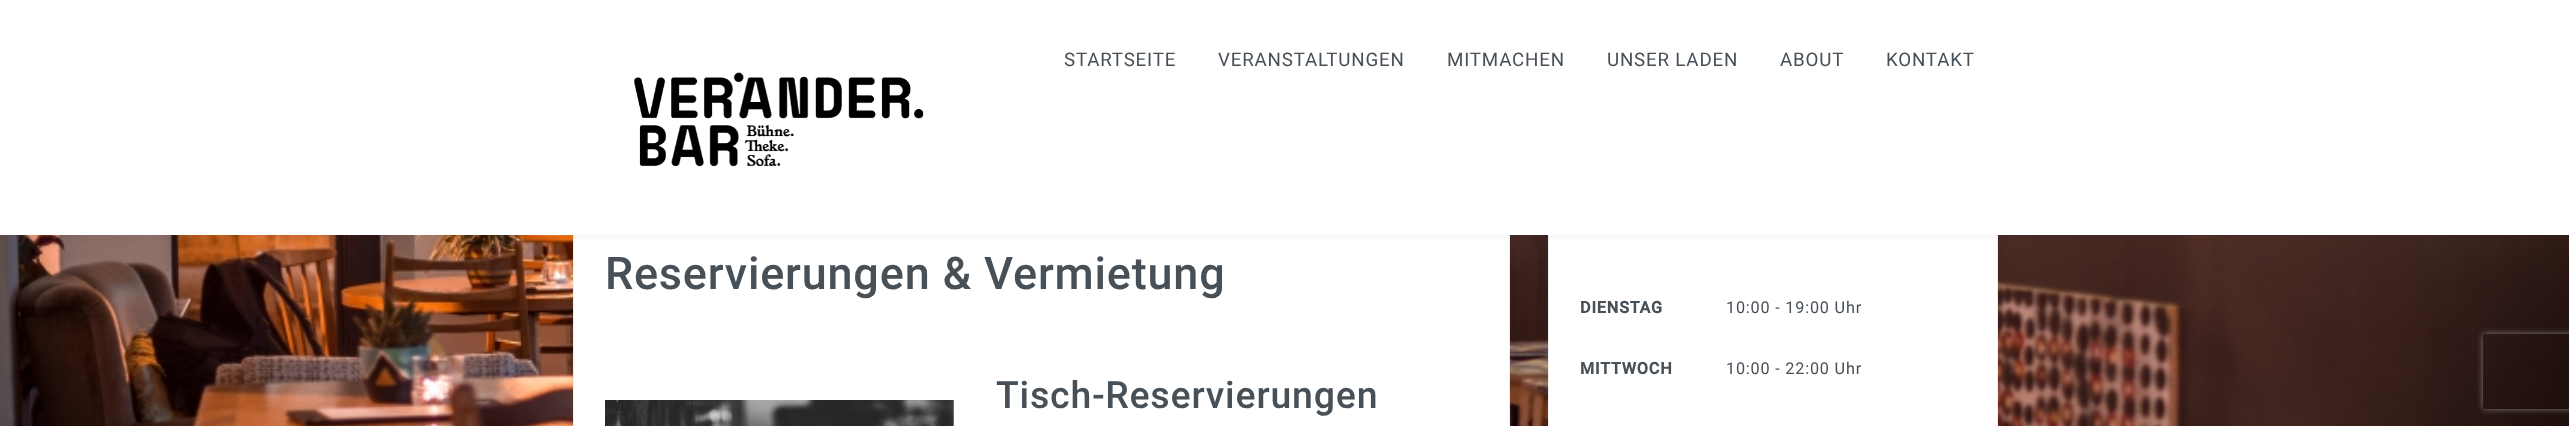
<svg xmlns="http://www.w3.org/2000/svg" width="2569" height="426">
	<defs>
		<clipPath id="clip1"><path d="M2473 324H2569V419H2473ZM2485.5 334H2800.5C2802 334 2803 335 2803 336.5V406.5C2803 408 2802 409 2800.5 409H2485.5C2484 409 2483 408 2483 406.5V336.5C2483 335 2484 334 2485.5 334Z" clip-rule="evenodd" /></clipPath>
	</defs>
	<rect width="100%" height="100%" fill="#FFFFFF" />
	<image x="0" y="235" width="2569" height="191" href="assets/img1.png" />
	<rect x="573" y="200" width="937" height="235" fill="#273039" fill-opacity="0.05" filter="blur(3px)" />
	<rect x="574" y="235" width="935" height="191" fill="#FFFFFF" />
	<rect x="573.5" y="200.5" width="936" height="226" fill="none" stroke="#EEEEEF" />
	<rect x="1548" y="200" width="450" height="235" fill="#273039" fill-opacity="0.05" filter="blur(3px)" />
	<rect x="1549" y="235" width="448" height="191" fill="#FFFFFF" />
	<rect x="1548.5" y="200.5" width="449" height="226" fill="none" stroke="#EEEEEF" />
	<rect x="0" y="-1" width="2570" height="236" fill="#273039" fill-opacity="0.07" filter="blur(4px)" />
	<rect x="0" y="0" width="2569" height="235" fill="#FFFFFF" />
	<g font-family="Roboto" font-size="18.75" letter-spacing="0.8" fill="#474F57">
		<text x="1064" y="66">STARTSEITE</text>
		<text x="1218" y="66">VERANSTALTUNGEN</text>
		<text x="1447" y="66">MITMACHEN</text>
		<text x="1607" y="66">UNSER LADEN</text>
		<text x="1780" y="66">ABOUT</text>
		<text x="1886" y="66">KONTAKT</text>
	</g>
	<image x="634" y="72" width="290" height="95" href="assets/img2.png" />
	<text x="605" y="289" font-family="Roboto" font-size="45" font-weight="500" letter-spacing="0.8" fill="#474F57">Reservierungen &amp; Vermietung</text>
	<image x="605" y="400" width="349" height="26" href="assets/img3.png" />
	<text x="996" y="408" font-family="Roboto" font-size="37.5" font-weight="500" letter-spacing="0.8" fill="#474F57">Tisch-Reservierungen</text>
	<text x="1580" y="313" font-family="Roboto" font-size="16.25" font-weight="700" letter-spacing="0.8" fill="#474F57">DIENSTAG</text>
	<text x="1726" y="313" font-family="Roboto" font-size="16.25" letter-spacing="0.8" fill="#474F57">10:00 - 19:00 Uhr</text>
	<text x="1580" y="374" font-family="Roboto" font-size="16.25" font-weight="700" letter-spacing="0.8" fill="#474F57">MITTWOCH</text>
	<text x="1726" y="374" font-family="Roboto" font-size="16.25" letter-spacing="0.8" fill="#474F57">10:00 - 22:00 Uhr</text>
	<g clip-path="url(#clip1)">
		<rect x="2483" y="334" width="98" height="75" rx="2.5" fill="#808080" filter="blur(3px)" />
	</g>
</svg>
